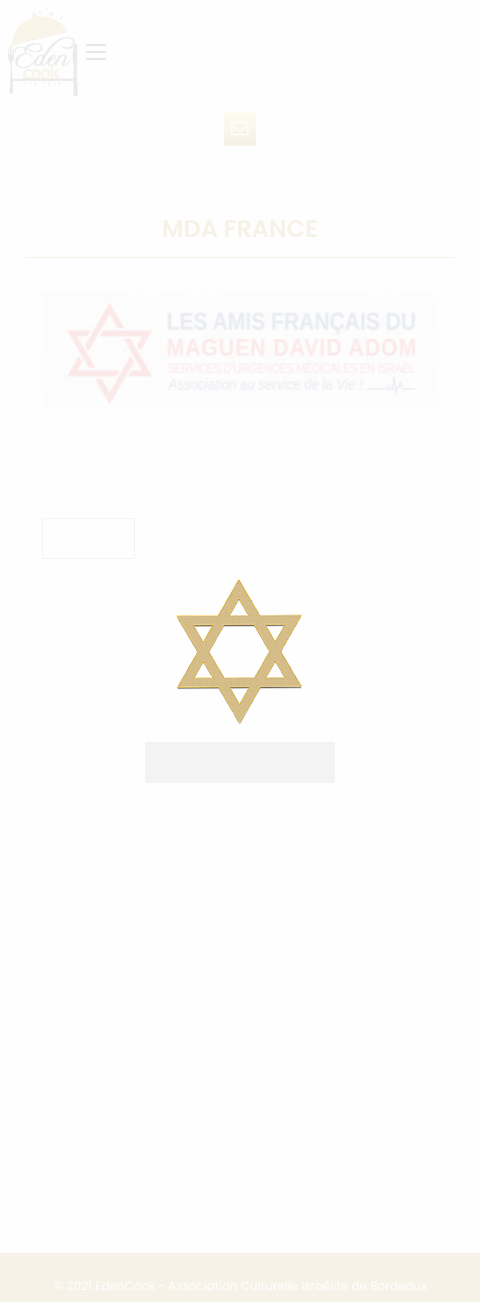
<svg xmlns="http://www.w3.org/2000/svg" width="480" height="1302">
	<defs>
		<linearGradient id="g1" gradientUnits="userSpaceOnUse" x1="240" y1="112" x2="240" y2="146"><stop offset="0.01" stop-color="#FEFBF1" /><stop offset="0.88" stop-color="#F6F2E7" /></linearGradient>
	</defs>
	<rect width="100%" height="100%" fill="#FEFEFE" />
	<image x="8" y="8" width="70" height="89" href="assets/img1.png" />
	<rect x="86" y="58" width="20" height="2" fill="#E6E6E6" />
	<rect x="86" y="51" width="20" height="2" fill="#E6E6E6" />
	<rect x="86" y="44" width="20" height="2" fill="#E6E6E6" />
	<rect x="224" y="112" width="32" height="34" rx="2" fill="url(#g1)" />
	<image x="231" y="121" width="18" height="15" href="assets/img2.png" />
	<rect x="25" y="257" width="430" height="1" fill="#F6F2E7" />
	<text x="162" y="237" font-family="Poppins" font-size="24" font-weight="600" fill="#F6F2E7">MDA FRANCE</text>
	<image x="42" y="291" width="396" height="118" href="assets/img3.png" />
	<rect x="42.5" y="518.5" width="92" height="40" rx="1.5" fill="none" stroke="#F4F3F3" />
	<rect x="145" y="742" width="190" height="41" rx="2" fill="#F4F3F3" />
	<rect x="0" y="1253" width="480" height="49" fill="#F6F2E7" />
	<text x="54" y="1290" font-family="Poppins" font-size="12" fill="#FEFEFE">© 2021 EdenCook - Association Culturelle Israëlite de Bordeaux</text>
	<image x="176" y="579" width="127" height="145" href="assets/img4.png" />
</svg>
